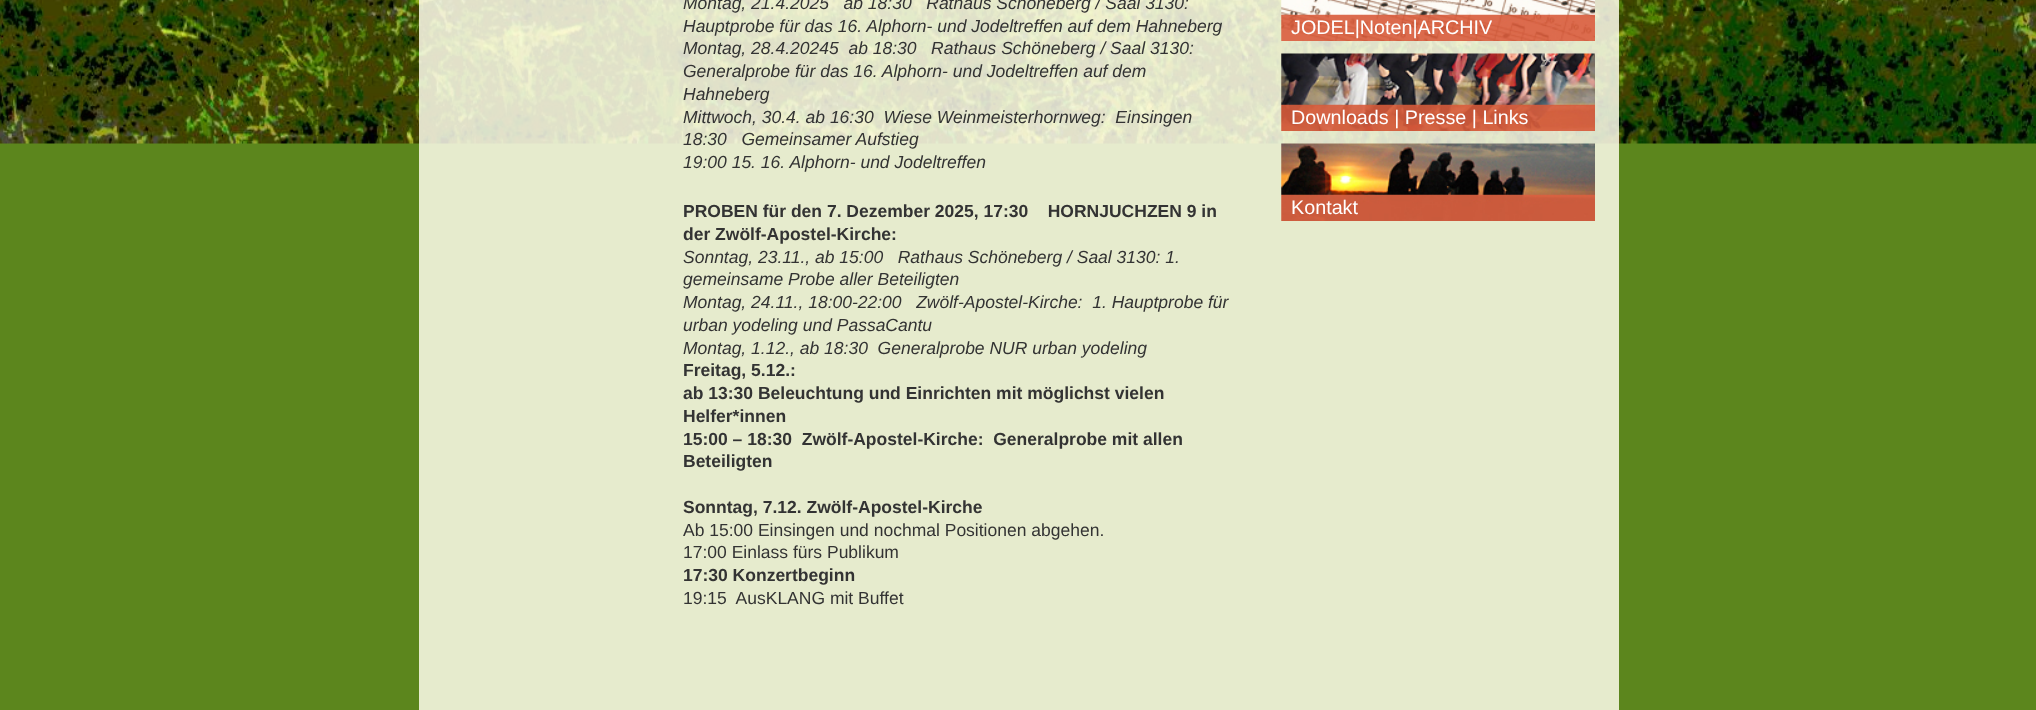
<svg xmlns="http://www.w3.org/2000/svg" width="2036" height="710">
	<rect width="100%" height="100%" fill="#5C861D" />
	<image x="0" y="0" width="2036" height="144" href="assets/img1.png" />
	<rect x="419" y="0" width="1200" height="710" fill="#FEFDEC" fill-opacity="0.85" />
	<g font-family="Liberation Sans" font-size="17.5" font-style="italic" fill="#333333">
		<text x="683" y="9" xml:space="preserve">Montag, 21.4.2025   ab 18:30   Rathaus Schöneberg / Saal 3130:</text>
		<text x="683" y="32">Hauptprobe für das 16. Alphorn- und Jodeltreffen auf dem Hahneberg</text>
		<text x="683" y="54" xml:space="preserve">Montag, 28.4.20245  ab 18:30   Rathaus Schöneberg / Saal 3130:</text>
		<text x="683" y="77">Generalprobe für das 16. Alphorn- und Jodeltreffen auf dem</text>
		<text x="683" y="100">Hahneberg</text>
		<text x="683" y="123" xml:space="preserve">Mittwoch, 30.4. ab 16:30  Wiese Weinmeisterhornweg:  Einsingen</text>
		<text x="683" y="145" xml:space="preserve">18:30   Gemeinsamer Aufstieg</text>
		<text x="683" y="168">19:00 15. 16. Alphorn- und Jodeltreffen</text>
	</g>
	<g font-family="Liberation Sans" font-size="17.5" font-weight="700" fill="#333333">
		<text x="683" y="217" xml:space="preserve">PROBEN für den 7. Dezember 2025, 17:30    HORNJUCHZEN 9 in</text>
		<text x="683" y="240">der Zwölf-Apostel-Kirche:</text>
	</g>
	<g font-family="Liberation Sans" font-size="17.5" font-style="italic" fill="#333333">
		<text x="683" y="263" xml:space="preserve">Sonntag, 23.11., ab 15:00   Rathaus Schöneberg / Saal 3130: 1.</text>
		<text x="683" y="285">gemeinsame Probe aller Beteiligten</text>
		<text x="683" y="308" xml:space="preserve">Montag, 24.11., 18:00-22:00   Zwölf-Apostel-Kirche:  1. Hauptprobe für</text>
		<text x="683" y="331">urban yodeling und PassaCantu</text>
		<text x="683" y="354" xml:space="preserve">Montag, 1.12., ab 18:30  Generalprobe NUR urban yodeling</text>
	</g>
	<g font-family="Liberation Sans" font-size="17.5" font-weight="700" fill="#333333">
		<text x="683" y="376">Freitag, 5.12.:</text>
		<text x="683" y="399">ab 13:30 Beleuchtung und Einrichten mit möglichst vielen</text>
		<text x="683" y="422">Helfer*innen</text>
		<text x="683" y="445" xml:space="preserve">15:00 – 18:30  Zwölf-Apostel-Kirche:  Generalprobe mit allen</text>
		<text x="683" y="467">Beteiligten</text>
		<text x="683" y="513">Sonntag, 7.12. Zwölf-Apostel-Kirche</text>
	</g>
	<g font-family="Liberation Sans" font-size="17.5" fill="#333333">
		<text x="683" y="536">Ab 15:00 Einsingen und nochmal Positionen abgehen.</text>
		<text x="683" y="558">17:00 Einlass fürs Publikum</text>
	</g>
	<text x="683" y="581" font-family="Liberation Sans" font-size="17.5" font-weight="700" fill="#333333">17:30 Konzertbeginn</text>
	<text x="683" y="604" font-family="Liberation Sans" font-size="17.5" fill="#333333" xml:space="preserve">19:15  AusKLANG mit Buffet</text>
	<image x="1281" y="0" width="314" height="41" href="assets/img2.png" />
	<text x="1291" y="34" font-family="Liberation Sans" font-size="19.75" fill="#FFFFFF">JODEL|Noten|ARCHIV</text>
	<image x="1281" y="53" width="314" height="78" href="assets/img3.png" />
	<text x="1291" y="124" font-family="Liberation Sans" font-size="19.75" fill="#FFFFFF">Downloads | Presse | Links</text>
	<image x="1281" y="143" width="314" height="78" href="assets/img4.png" />
	<text x="1291" y="214" font-family="Liberation Sans" font-size="19.75" fill="#FFFFFF">Kontakt</text>
</svg>
